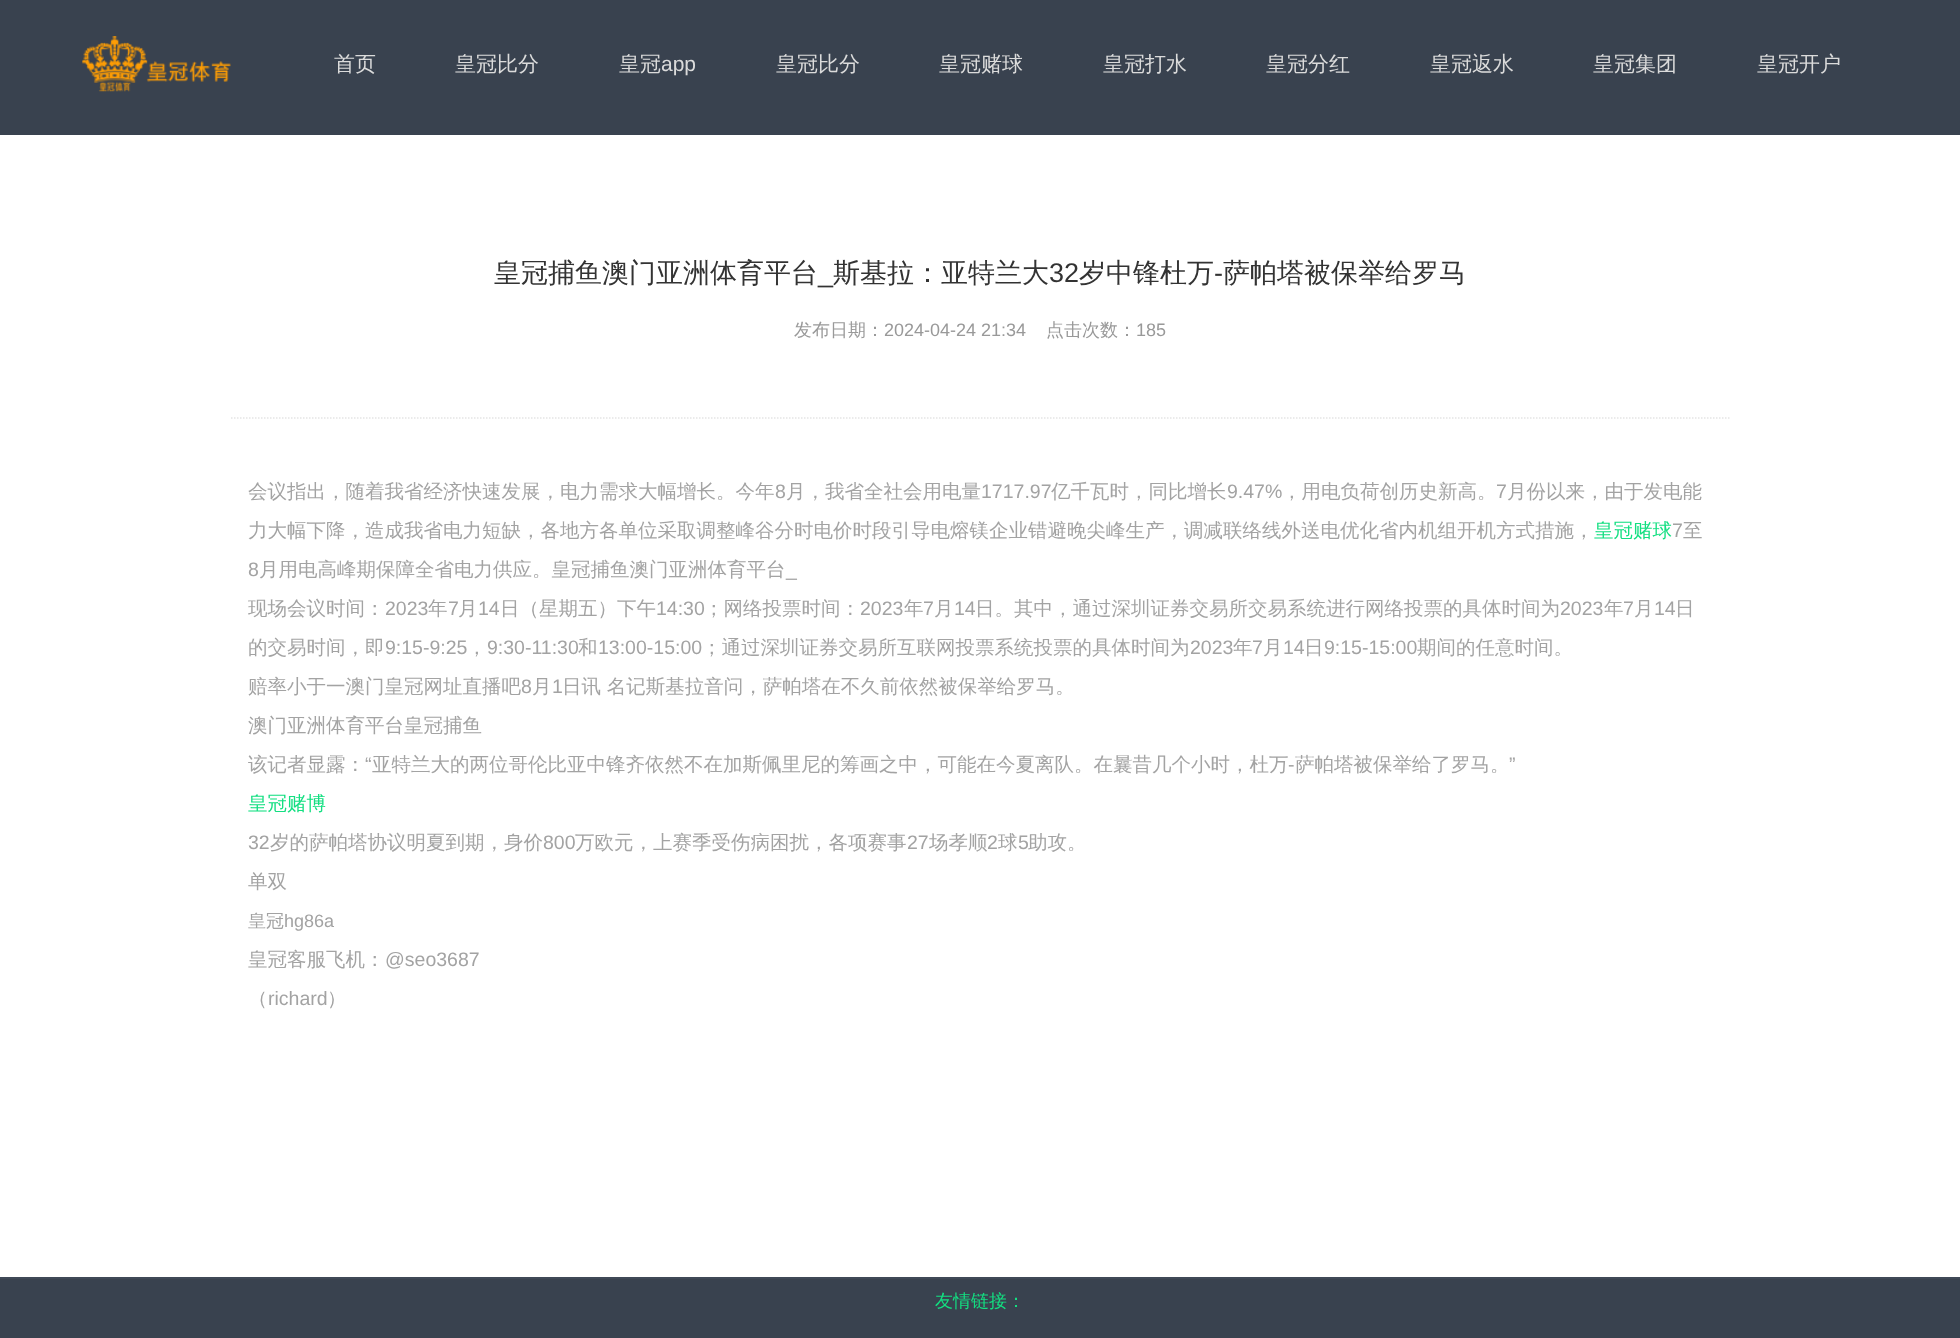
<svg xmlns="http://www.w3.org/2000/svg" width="1960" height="1338">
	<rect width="100%" height="100%" fill="#FFFFFF" />
	<rect x="0" y="0" width="1960" height="135" fill="#39424F" />
	<image x="82" y="36" width="149" height="56" href="assets/img1.png" />
	<g font-family="WenQuanYi Zen Hei" font-size="21" font-weight="500" fill="#DBDBDB">
		<text x="334" y="71">首页</text>
		<text x="455" y="71">皇冠比分</text>
		<text x="619" y="71">皇冠</text>
	</g>
	<text x="661" y="71" font-family="Liberation Sans" font-size="21" fill="#DBDBDB">app</text>
	<g font-family="WenQuanYi Zen Hei" font-size="21" font-weight="500" fill="#DBDBDB">
		<text x="776" y="71">皇冠比分</text>
		<text x="939" y="71">皇冠赌球</text>
		<text x="1103" y="71">皇冠打水</text>
		<text x="1266" y="71">皇冠分红</text>
		<text x="1430" y="71">皇冠返水</text>
		<text x="1593" y="71">皇冠集团</text>
		<text x="1757" y="71">皇冠开户</text>
	</g>
	<g font-family="WenQuanYi Zen Hei" font-size="27" font-weight="500" fill="#333333">
		<text x="494" y="282">皇冠捕鱼澳门亚洲体育平台</text>
		<text x="833" y="282">斯基拉：亚特兰大</text>
	</g>
	<text x="1049" y="282" font-family="Liberation Sans" font-size="27" fill="#333333">32</text>
	<text x="1079" y="282" font-family="WenQuanYi Zen Hei" font-size="27" font-weight="500" fill="#333333">岁中锋杜万</text>
	<text x="1214" y="282" font-family="Liberation Sans" font-size="27" fill="#333333">-</text>
	<text x="1223" y="282" font-family="WenQuanYi Zen Hei" font-size="27" font-weight="500" fill="#333333">萨帕塔被保举给罗马</text>
	<text x="818" y="282" font-family="Liberation Sans" font-size="27" fill="#333333">_</text>
	<text x="794" y="336" font-family="WenQuanYi Zen Hei" font-size="18" font-weight="500" fill="#999999">发布日期：</text>
	<text x="884" y="336" font-family="Liberation Sans" font-size="18" fill="#999999">2024-04-24 21:34</text>
	<text x="1046" y="336" font-family="WenQuanYi Zen Hei" font-size="18" font-weight="500" fill="#999999">点击次数：</text>
	<text x="1136" y="336" font-family="Liberation Sans" font-size="18" fill="#999999">185</text>
	<path d="M231 418H1731" fill="none" stroke="#E5E5E5" stroke-width="1.5" stroke-dasharray="1.5 1.5" />
	<text x="248" y="498" font-family="WenQuanYi Zen Hei" font-size="19.5" font-weight="500" fill="#A3A3A3">会议指出，随着我省经济快速发展，电力需求大幅增长。今年</text>
	<text x="775" y="498" font-family="Liberation Sans" font-size="19.5" fill="#A3A3A3">8</text>
	<text x="786" y="498" font-family="WenQuanYi Zen Hei" font-size="19.5" font-weight="500" fill="#A3A3A3">月，我省全社会用电量</text>
	<text x="981" y="498" font-family="Liberation Sans" font-size="19.5" fill="#A3A3A3">1717.97</text>
	<text x="1051" y="498" font-family="WenQuanYi Zen Hei" font-size="19.5" font-weight="500" fill="#A3A3A3">亿千瓦时，同比增长</text>
	<text x="1227" y="498" font-family="Liberation Sans" font-size="19.5" fill="#A3A3A3">9.47%</text>
	<text x="1282" y="498" font-family="WenQuanYi Zen Hei" font-size="19.5" font-weight="500" fill="#A3A3A3">，用电负荷创历史新高。</text>
	<text x="1496" y="498" font-family="Liberation Sans" font-size="19.5" fill="#A3A3A3">7</text>
	<g font-family="WenQuanYi Zen Hei" font-size="19.5" font-weight="500" fill="#A3A3A3">
		<text x="1507" y="498">月份以来，由于发电能</text>
		<text x="248" y="537">力大幅下降，造成我省电力短缺，各地方各单位采取调整峰谷分时电价时段引导电熔镁企业错避晚尖峰生产，调减联络线外送电优化省内机组开机方式措施，</text>
	</g>
	<text x="1594" y="537" font-family="WenQuanYi Zen Hei" font-size="19.5" font-weight="500" fill="#13DF81">皇冠赌球</text>
	<text x="1672" y="537" font-family="Liberation Sans" font-size="19.5" fill="#A3A3A3">7</text>
	<text x="1683" y="537" font-family="WenQuanYi Zen Hei" font-size="19.5" font-weight="500" fill="#A3A3A3">至</text>
	<text x="248" y="576" font-family="Liberation Sans" font-size="19.5" fill="#A3A3A3">8</text>
	<text x="259" y="576" font-family="WenQuanYi Zen Hei" font-size="19.5" font-weight="500" fill="#A3A3A3">月用电高峰期保障全省电力供应。皇冠捕鱼澳门亚洲体育平台</text>
	<text x="786" y="576" font-family="Liberation Sans" font-size="19.5" fill="#A3A3A3">_</text>
	<text x="248" y="615" font-family="WenQuanYi Zen Hei" font-size="19.5" font-weight="500" fill="#A3A3A3">现场会议时间：</text>
	<text x="385" y="615" font-family="Liberation Sans" font-size="19.5" fill="#A3A3A3">2023</text>
	<text x="428" y="615" font-family="WenQuanYi Zen Hei" font-size="19.5" font-weight="500" fill="#A3A3A3">年</text>
	<text x="448" y="615" font-family="Liberation Sans" font-size="19.5" fill="#A3A3A3">7</text>
	<text x="458" y="615" font-family="WenQuanYi Zen Hei" font-size="19.5" font-weight="500" fill="#A3A3A3">月</text>
	<text x="478" y="615" font-family="Liberation Sans" font-size="19.5" fill="#A3A3A3">14</text>
	<text x="500" y="615" font-family="WenQuanYi Zen Hei" font-size="19.5" font-weight="500" fill="#A3A3A3">日（星期五）下午</text>
	<text x="656" y="615" font-family="Liberation Sans" font-size="19.5" fill="#A3A3A3">14:30</text>
	<text x="704" y="615" font-family="WenQuanYi Zen Hei" font-size="19.5" font-weight="500" fill="#A3A3A3">；网络投票时间：</text>
	<text x="860" y="615" font-family="Liberation Sans" font-size="19.5" fill="#A3A3A3">2023</text>
	<text x="904" y="615" font-family="WenQuanYi Zen Hei" font-size="19.5" font-weight="500" fill="#A3A3A3">年</text>
	<text x="923" y="615" font-family="Liberation Sans" font-size="19.5" fill="#A3A3A3">7</text>
	<text x="934" y="615" font-family="WenQuanYi Zen Hei" font-size="19.5" font-weight="500" fill="#A3A3A3">月</text>
	<text x="954" y="615" font-family="Liberation Sans" font-size="19.5" fill="#A3A3A3">14</text>
	<text x="975" y="615" font-family="WenQuanYi Zen Hei" font-size="19.5" font-weight="500" fill="#A3A3A3">日。其中，通过深圳证券交易所交易系统进行网络投票的具体时间为</text>
	<text x="1560" y="615" font-family="Liberation Sans" font-size="19.5" fill="#A3A3A3">2023</text>
	<text x="1604" y="615" font-family="WenQuanYi Zen Hei" font-size="19.5" font-weight="500" fill="#A3A3A3">年</text>
	<text x="1623" y="615" font-family="Liberation Sans" font-size="19.5" fill="#A3A3A3">7</text>
	<text x="1634" y="615" font-family="WenQuanYi Zen Hei" font-size="19.5" font-weight="500" fill="#A3A3A3">月</text>
	<text x="1654" y="615" font-family="Liberation Sans" font-size="19.5" fill="#A3A3A3">14</text>
	<g font-family="WenQuanYi Zen Hei" font-size="19.5" font-weight="500" fill="#A3A3A3">
		<text x="1675" y="615">日</text>
		<text x="248" y="654">的交易时间，即</text>
	</g>
	<text x="385" y="654" font-family="Liberation Sans" font-size="19.5" fill="#A3A3A3">9:15-9:25</text>
	<text x="467" y="654" font-family="WenQuanYi Zen Hei" font-size="19.5" font-weight="500" fill="#A3A3A3">，</text>
	<text x="487" y="654" font-family="Liberation Sans" font-size="19.5" fill="#A3A3A3">9:30-11:30</text>
	<text x="578" y="654" font-family="WenQuanYi Zen Hei" font-size="19.5" font-weight="500" fill="#A3A3A3">和</text>
	<text x="598" y="654" font-family="Liberation Sans" font-size="19.5" fill="#A3A3A3">13:00-15:00</text>
	<text x="702" y="654" font-family="WenQuanYi Zen Hei" font-size="19.5" font-weight="500" fill="#A3A3A3">；通过深圳证券交易所互联网投票系统投票的具体时间为</text>
	<text x="1190" y="654" font-family="Liberation Sans" font-size="19.5" fill="#A3A3A3">2023</text>
	<text x="1233" y="654" font-family="WenQuanYi Zen Hei" font-size="19.5" font-weight="500" fill="#A3A3A3">年</text>
	<text x="1252" y="654" font-family="Liberation Sans" font-size="19.5" fill="#A3A3A3">7</text>
	<text x="1263" y="654" font-family="WenQuanYi Zen Hei" font-size="19.5" font-weight="500" fill="#A3A3A3">月</text>
	<text x="1283" y="654" font-family="Liberation Sans" font-size="19.5" fill="#A3A3A3">14</text>
	<text x="1304" y="654" font-family="WenQuanYi Zen Hei" font-size="19.5" font-weight="500" fill="#A3A3A3">日</text>
	<text x="1324" y="654" font-family="Liberation Sans" font-size="19.5" fill="#A3A3A3">9:15-15:00</text>
	<g font-family="WenQuanYi Zen Hei" font-size="19.5" font-weight="500" fill="#A3A3A3">
		<text x="1417" y="654">期间的任意时间。</text>
		<text x="248" y="693">赔率小于一澳门皇冠网址直播吧</text>
	</g>
	<text x="521" y="693" font-family="Liberation Sans" font-size="19.5" fill="#A3A3A3">8</text>
	<text x="532" y="693" font-family="WenQuanYi Zen Hei" font-size="19.5" font-weight="500" fill="#A3A3A3">月</text>
	<text x="552" y="693" font-family="Liberation Sans" font-size="19.5" fill="#A3A3A3">1</text>
	<g font-family="WenQuanYi Zen Hei" font-size="19.5" font-weight="500" fill="#A3A3A3">
		<text x="562" y="693">日讯 名记斯基拉音问，萨帕塔在不久前依然被保举给罗马。</text>
		<text x="248" y="732">澳门亚洲体育平台皇冠捕鱼</text>
		<text x="248" y="771">该记者显露：</text>
	</g>
	<text x="365" y="771" font-family="Liberation Sans" font-size="19.5" fill="#A3A3A3">“</text>
	<g font-family="WenQuanYi Zen Hei" font-size="19.5" font-weight="500" fill="#A3A3A3">
		<text x="372" y="771">亚特兰大的两位哥伦比亚中锋齐依然不在加斯佩里尼的筹画之中，可能在今夏离队。在曩昔几个小时，杜万</text>
		<text x="1295" y="771">萨帕塔被保举给了罗马。</text>
	</g>
	<g font-family="Liberation Sans" font-size="19.5" fill="#A3A3A3">
		<text x="1509" y="771">”</text>
		<text x="1288" y="771">-</text>
	</g>
	<text x="248" y="810" font-family="WenQuanYi Zen Hei" font-size="19.5" font-weight="500" fill="#13DF81">皇冠赌博</text>
	<text x="248" y="849" font-family="Liberation Sans" font-size="19.5" fill="#A3A3A3">32</text>
	<text x="270" y="849" font-family="WenQuanYi Zen Hei" font-size="19.5" font-weight="500" fill="#A3A3A3">岁的萨帕塔协议明夏到期，身价</text>
	<text x="543" y="849" font-family="Liberation Sans" font-size="19.5" fill="#A3A3A3">800</text>
	<text x="575" y="849" font-family="WenQuanYi Zen Hei" font-size="19.5" font-weight="500" fill="#A3A3A3">万欧元，上赛季受伤病困扰，各项赛事</text>
	<text x="907" y="849" font-family="Liberation Sans" font-size="19.5" fill="#A3A3A3">27</text>
	<text x="929" y="849" font-family="WenQuanYi Zen Hei" font-size="19.5" font-weight="500" fill="#A3A3A3">场孝顺</text>
	<text x="987" y="849" font-family="Liberation Sans" font-size="19.5" fill="#A3A3A3">2</text>
	<text x="998" y="849" font-family="WenQuanYi Zen Hei" font-size="19.5" font-weight="500" fill="#A3A3A3">球</text>
	<text x="1018" y="849" font-family="Liberation Sans" font-size="19.5" fill="#A3A3A3">5</text>
	<g font-family="WenQuanYi Zen Hei" font-size="19.5" font-weight="500" fill="#A3A3A3">
		<text x="1028" y="849">助攻。</text>
		<text x="248" y="888">单双</text>
	</g>
	<text x="248" y="927" font-family="WenQuanYi Zen Hei" font-size="18" font-weight="500" fill="#A3A3A3">皇冠</text>
	<text x="284" y="927" font-family="Liberation Sans" font-size="18" fill="#A3A3A3">hg86a</text>
	<text x="248" y="966" font-family="WenQuanYi Zen Hei" font-size="19.5" font-weight="500" fill="#A3A3A3">皇冠客服飞机：</text>
	<text x="385" y="966" font-family="Liberation Sans" font-size="19.5" fill="#A3A3A3">@seo3687</text>
	<text x="248" y="1005" font-family="WenQuanYi Zen Hei" font-size="19.5" font-weight="500" fill="#A3A3A3">（</text>
	<text x="268" y="1005" font-family="Liberation Sans" font-size="19.5" fill="#A3A3A3">richard</text>
	<text x="327" y="1005" font-family="WenQuanYi Zen Hei" font-size="19.5" font-weight="500" fill="#A3A3A3">）</text>
	<rect x="0" y="1279" width="1960" height="59" fill="#39424F" />
	<rect x="0" y="1277" width="1960" height="2" fill="#3F4957" />
	<text x="935" y="1307" font-family="WenQuanYi Zen Hei" font-size="18" font-weight="500" fill="#13DF81">友情链接：</text>
</svg>
